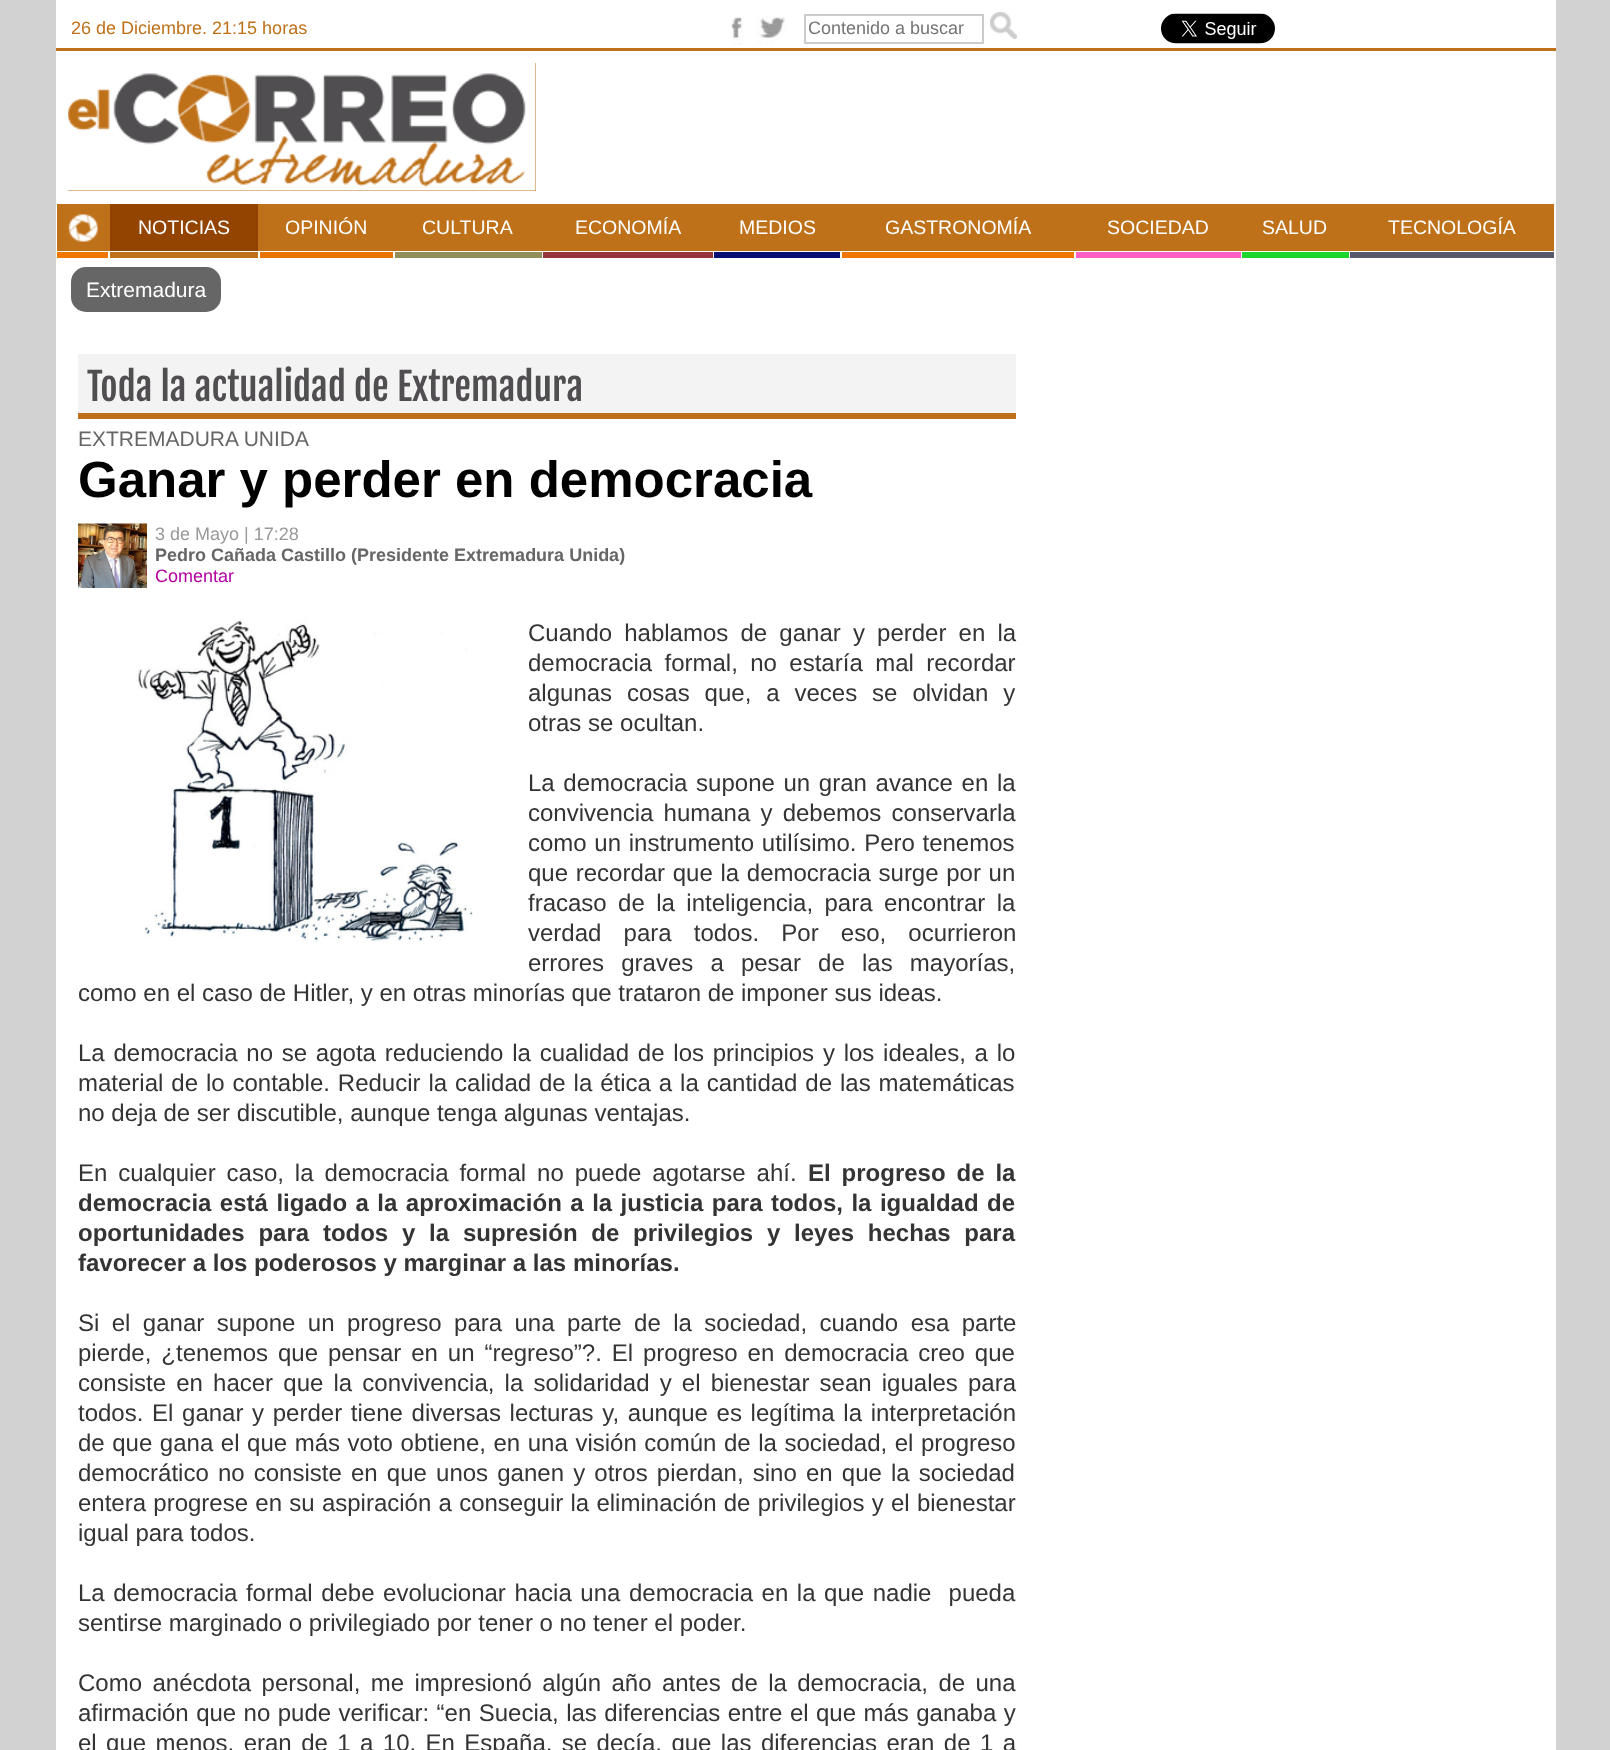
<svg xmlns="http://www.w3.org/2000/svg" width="1610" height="1750">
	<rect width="100%" height="100%" fill="#D2D2D2" />
	<rect x="56" y="0" width="1500" height="1750" fill="#FFFFFF" />
	<text x="71" y="34" font-family="Liberation Sans" font-size="18" fill="#BF7119">26 de Diciembre. 21:15 horas</text>
	<image x="731" y="15" width="13" height="30" href="assets/img1.png" />
	<image x="756" y="15" width="30" height="30" href="assets/img2.png" />
	<rect x="805" y="15" width="178" height="28" fill="none" stroke="#CCCCCC" stroke-width="2" />
	<text x="808" y="34" font-family="Liberation Sans" font-size="18" fill="#757575">Contenido a buscar</text>
	<image x="990" y="12" width="27" height="27" href="assets/img3.png" />
	<image x="1161" y="13" width="114" height="31" href="assets/img4.png" />
	<rect x="56" y="48" width="1500" height="3" fill="#BF7119" />
	<rect x="68" y="63" width="468" height="128" fill="#BF7119" />
	<image x="68" y="63" width="468" height="128" href="assets/img5.png" />
	<rect x="57" y="204" width="1497" height="47" fill="#BF7119" />
	<image x="68" y="214" width="30" height="28" href="assets/img6.png" />
	<rect x="110" y="204" width="148" height="47" fill="#924400" />
	<g font-family="Liberation Sans" font-size="19.5" fill="#FFFFFF">
		<text x="138" y="234">NOTICIAS</text>
		<text x="285" y="234">OPINIÓN</text>
		<text x="422" y="234">CULTURA</text>
		<text x="575" y="234">ECONOMÍA</text>
		<text x="739" y="234">MEDIOS</text>
		<text x="885" y="234">GASTRONOMÍA</text>
		<text x="1107" y="234">SOCIEDAD</text>
		<text x="1262" y="234">SALUD</text>
		<text x="1388" y="234">TECNOLOGÍA</text>
	</g>
	<rect x="57" y="252" width="51" height="6" fill="#F07800" />
	<rect x="110" y="252" width="148" height="6" fill="#BF7119" />
	<rect x="260" y="252" width="133" height="6" fill="#E87300" />
	<rect x="395" y="252" width="147" height="6" fill="#918E57" />
	<rect x="543" y="252" width="170" height="6" fill="#96363C" />
	<rect x="714" y="252" width="126" height="6" fill="#080F73" />
	<rect x="842" y="252" width="232" height="6" fill="#F07800" />
	<rect x="1076" y="252" width="165" height="6" fill="#FF5EC4" />
	<rect x="1242" y="252" width="107" height="6" fill="#1CD62E" />
	<rect x="1350" y="252" width="204" height="6" fill="#57596B" />
	<rect x="71" y="267" width="150" height="45" rx="15" fill="#666666" />
	<text x="86" y="297" font-family="Liberation Sans" font-size="21" fill="#FFFFFF">Extremadura</text>
	<rect x="78" y="354" width="938" height="59" fill="#F3F3F3" />
	<text x="87" y="401" font-family="Fjalla One" font-size="37.5" fill="#504E50">Toda la actualidad de Extremadura</text>
	<rect x="78" y="413" width="938" height="6" fill="#BF7119" />
	<text x="78" y="446" font-family="Liberation Sans" font-size="21" fill="#666666">EXTREMADURA UNIDA</text>
	<text x="78" y="497" font-family="Liberation Sans" font-size="51" font-weight="700" fill="#000000">Ganar y perder en democracia</text>
	<image x="78" y="523" width="69" height="65" href="assets/img7.png" />
	<text x="155" y="540" font-family="Liberation Sans" font-size="18" fill="#999999">3 de Mayo | 17:28</text>
	<text x="155" y="561" font-family="Liberation Sans" font-size="18" font-weight="700" fill="#666666">Pedro Cañada Castillo (Presidente Extremadura Unida)</text>
	<text x="155" y="582" font-family="Liberation Sans" font-size="18" fill="#B300A1">Comentar</text>
	<image x="138" y="619" width="335" height="324" href="assets/img8.png" />
	<g font-family="Liberation Sans" font-size="24" fill="#353435">
		<text x="528" y="641" word-spacing="5.5">Cuando hablamos de ganar y perder en la</text>
		<text x="528" y="671" word-spacing="5.75">democracia formal, no estaría mal recordar</text>
		<text x="528" y="701" word-spacing="8.25">algunas cosas que, a veces se olvidan y</text>
		<text x="528" y="731">otras se ocultan.</text>
		<text x="528" y="791" word-spacing="2">La democracia supone un gran avance en la</text>
		<text x="528" y="821" word-spacing="3.5">convivencia humana y debemos conservarla</text>
		<text x="528" y="851" word-spacing="1">como un instrumento utilísimo. Pero tenemos</text>
		<text x="528" y="881" word-spacing="1">que recordar que la democracia surge por un</text>
		<text x="528" y="911" word-spacing="4.75">fracaso de la inteligencia, para encontrar la</text>
		<text x="528" y="941" word-spacing="15.5">verdad para todos. Por eso, ocurrieron</text>
		<text x="528" y="971" word-spacing="10.5">errores graves a pesar de las mayorías,</text>
		<text x="78" y="1001">como en el caso de Hitler, y en otras minorías que trataron de imponer sus ideas.</text>
		<text x="78" y="1061" word-spacing="2.1">La democracia no se agota reduciendo la cualidad de los principios y los ideales, a lo</text>
		<text x="78" y="1091" word-spacing="1.25">material de lo contable. Reducir la calidad de la ética a la cantidad de las matemáticas</text>
		<text x="78" y="1121">no deja de ser discutible, aunque tenga algunas ventajas.</text>
		<text x="78" y="1181" word-spacing="4.25">En cualquier caso, la democracia formal no puede agotarse ahí.</text>
	</g>
	<g font-family="Liberation Sans" font-size="24" font-weight="700" fill="#353435">
		<text x="808" y="1181" word-spacing="4.25">El progreso de la</text>
		<text x="78" y="1211" word-spacing="1.8">democracia está ligado a la aproximación a la justicia para todos, la igualdad de</text>
		<text x="78" y="1241" word-spacing="7.1">oportunidades para todos y la supresión de privilegios y leyes hechas para</text>
		<text x="78" y="1271">favorecer a los poderosos y marginar a las minorías.</text>
	</g>
	<g font-family="Liberation Sans" font-size="24" fill="#353435">
		<text x="78" y="1331" word-spacing="5.75">Si el ganar supone un progreso para una parte de la sociedad, cuando esa parte</text>
		<text x="78" y="1361" word-spacing="3.25">pierde, ¿tenemos que pensar en un “regreso”?. El progreso en democracia creo que</text>
		<text x="78" y="1391" word-spacing="3.5">consiste en hacer que la convivencia, la solidaridad y el bienestar sean iguales para</text>
		<text x="78" y="1421" word-spacing="2">todos. El ganar y perder tiene diversas lecturas y, aunque es legítima la interpretación</text>
		<text x="78" y="1451" word-spacing="0.9">de que gana el que más voto obtiene, en una visión común de la sociedad, el progreso</text>
		<text x="78" y="1481" word-spacing="2.5">democrático no consiste en que unos ganen y otros pierdan, sino en que la sociedad</text>
		<text x="78" y="1511" word-spacing="0.6">entera progrese en su aspiración a conseguir la eliminación de privilegios y el bienestar</text>
		<text x="78" y="1541">igual para todos.</text>
		<text x="78" y="1601" word-spacing="1.9" xml:space="preserve">La democracia formal debe evolucionar hacia una democracia en la que nadie  pueda</text>
		<text x="78" y="1631">sentirse marginado o privilegiado por tener o no tener el poder.</text>
		<text x="78" y="1691" word-spacing="3.75">Como anécdota personal, me impresionó algún año antes de la democracia, de una</text>
		<text x="78" y="1721" word-spacing="0.75">afirmación que no pude verificar: “en Suecia, las diferencias entre el que más ganaba y</text>
		<text x="78" y="1751" word-spacing="2.75">el que menos, eran de 1 a 10. En España, se decía, que las diferencias eran de 1 a</text>
	</g>
</svg>
